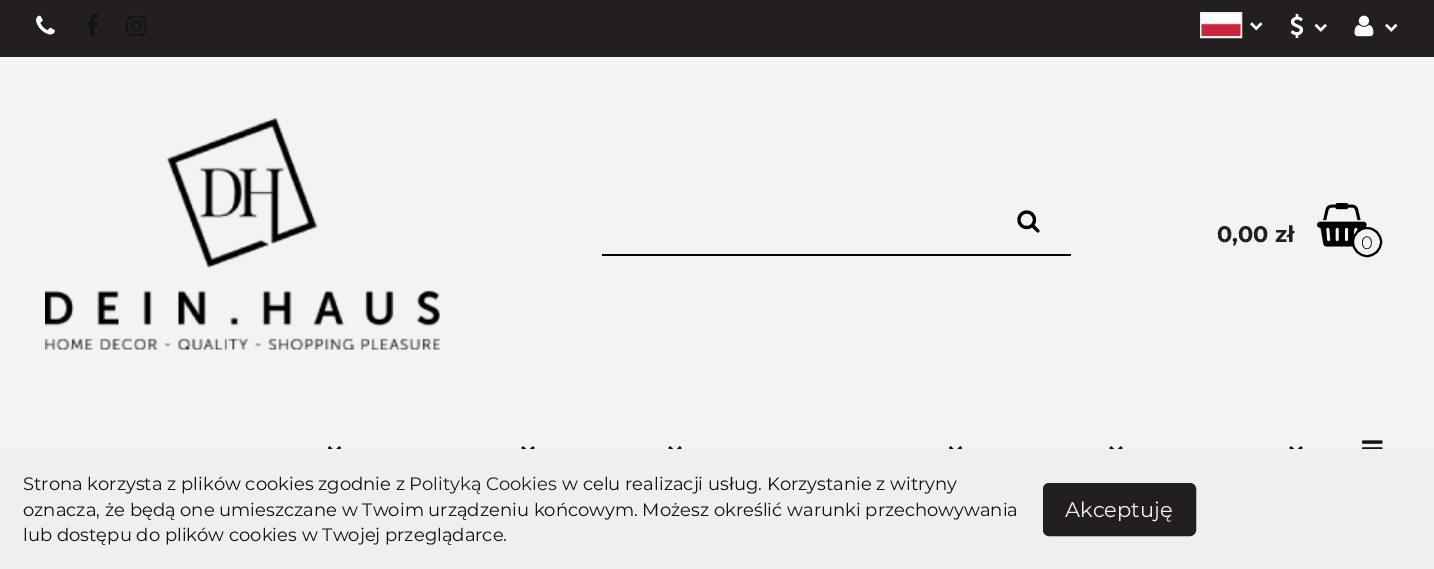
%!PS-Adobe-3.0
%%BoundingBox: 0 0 1434 569
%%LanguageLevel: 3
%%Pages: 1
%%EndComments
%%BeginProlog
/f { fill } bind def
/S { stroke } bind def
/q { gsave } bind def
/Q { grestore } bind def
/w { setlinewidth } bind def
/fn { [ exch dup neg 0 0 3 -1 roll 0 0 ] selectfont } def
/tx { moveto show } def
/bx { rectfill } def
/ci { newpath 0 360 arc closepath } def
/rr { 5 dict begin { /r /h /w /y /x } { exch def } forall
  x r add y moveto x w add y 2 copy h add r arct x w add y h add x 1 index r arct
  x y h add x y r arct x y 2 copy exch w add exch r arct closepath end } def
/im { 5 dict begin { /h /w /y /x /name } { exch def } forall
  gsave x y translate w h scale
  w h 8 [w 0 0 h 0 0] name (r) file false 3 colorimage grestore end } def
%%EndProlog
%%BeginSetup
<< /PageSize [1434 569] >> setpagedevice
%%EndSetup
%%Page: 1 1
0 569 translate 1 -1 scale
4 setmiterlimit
0.953 setgray
0 0 1434 569 bx
0.137 0.122 0.125 setrgbcolor
0 0 1434 57 bx
(image0.raw) 36 15 19 20 im
(image1.raw) 87 14 12 22 im
(image2.raw) 126 15 21 21 im
0.937 setgray
2 w
1201 13 40 24 rectstroke
(image3.raw) 1201 13 40 23 im
(image4.raw) 1250 22 13 9 im
(image5.raw) 1290 13 14 25 im
(image6.raw) 1314 24 13 8 im
(image7.raw) 1354 15 20 22 im
(image8.raw) 1385 24 13 8 im
(image9.raw) 45 118 395 232 im
(image10.raw) 1017 210 23 23 im
0.004 setgray
602 254 469 2 bx
/Montserrat-Bold 22.5 fn
0.137 0.122 0.125 setrgbcolor
(0,00 zł) 1217 242 tx
(image11.raw) 1317 203 50 44 im
0.953 setgray
1367 242 14 ci q f Q
0 setgray
S
/Montserrat-Light 18 fn
(0) 1361 249 tx
(image12.raw) 327 446 15 3 im
(image13.raw) 521 446 14 3 im
(image13.raw) 668 446 14 3 im
(image12.raw) 948 446 15 3 im
(image13.raw) 1109 446 14 3 im
(image13.raw) 1289 446 14 3 im
(image14.raw) 1362 440 21 9 im
0.937 setgray
0 449 1434 120 bx
/Montserrat-Regular 18 fn
0.075 setgray
(Strona korzysta z plików cookies zgodnie z) 23 490 tx
0.137 0.122 0.125 setrgbcolor
(Polityką Cookies) 409 490 tx
0.075 setgray
(w celu realizacji usług. Korzystanie z witryny) 562 490 tx
(oznacza, że będą one umieszczane w Twoim urządzeniu końcowym. Możesz określić warunki przechowywania) 23 516 tx
(lub dostępu do plików cookies w Twojej przeglądarce.) 23 541 tx
0.137 0.122 0.125 setrgbcolor
1045.5 485.5 148 48 3.5 rr q f Q
5 w
S
/Montserrat-Regular 21 fn
0.953 setgray
(Akceptuję) 1065 517 tx
showpage
%%EOF
